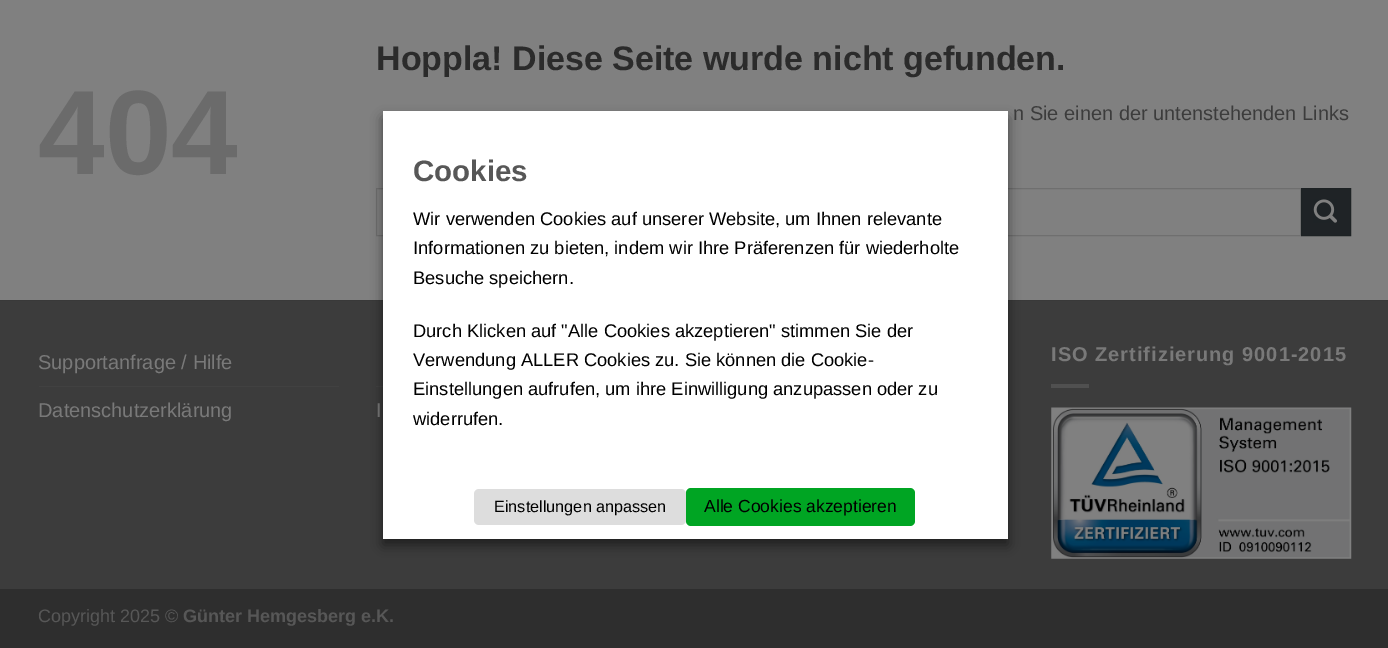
%!PS-Adobe-3.0
%%BoundingBox: 0 0 1388 648
%%LanguageLevel: 3
%%Pages: 1
%%EndComments
%%BeginProlog
/m { moveto } bind def
/l { lineto } bind def
/h { closepath } bind def
/f { fill } bind def
/S { stroke } bind def
/q { gsave } bind def
/Q { grestore } bind def
/fn { [ exch dup neg 0 0 3 -1 roll 0 0 ] selectfont } def
/tx { moveto show } def
/bx { rectfill } def
/al { dup .setfillconstantalpha .setstrokeconstantalpha } def
/rr { 5 dict begin { /r /h /w /y /x } { exch def } forall
  x r add y moveto x w add y 2 copy h add r arct x w add y h add x 1 index r arct
  x y h add x y r arct x y 2 copy exch w add exch r arct closepath end } def
/sh { 12 dict begin { /a /b /q /h /w /y /x } { exch def } forall gsave /was 0 def
  9 -2 -9 { dup b mul 4 div /e exch def 1 sub .425 mul 2.718 exch exp 1 add a .99 .min exch div /now exch def
    1 1 now sub 1 was sub div sub al /was now def
    w h .min e 2 mul add 0 gt { x e sub y e sub w e 2 mul add h e 2 mul add
      q e add b .6 mul add w h .min 2 div e add .min 0 .max rr fill } if } for grestore end } def
/im { 5 dict begin { /h /w /y /x /name } { exch def } forall
  gsave x y translate w h scale
  w h 8 [w 0 0 h 0 0] name (r) file false 3 colorimage grestore end } def
%%EndProlog
%%BeginSetup
<< /PageSize [1388 648] /PageUsesTransparency true >> setpagedevice
%%EndSetup
%%Page: 1 1
0 .pushpdf14devicefilter
0 648 translate 1 -1 scale
4 setmiterlimit
0.502 setgray
0 0 1388 648 bx
/LiberationSans-Bold 120 fn
0.42 setgray
(404) 38 174 tx
/LiberationSans-Bold 34 fn
0.169 setgray
(Hoppla! Diese Seite wurde nicht gefunden.) 376 70 tx
/LiberationSans-Regular 20 fn
0.235 setgray
(n Sie einen der untenstehenden Links) 1013 120 tx
0.435 setgray
376.5 188.5 924 47 rectstroke
0.122 0.137 0.149 setrgbcolor
1301.5 188.5 m 1350.5 188.5 l 1350.5 235.5 l 1301.5 235.5 l h q f Q
0.114 0.133 0.141 setrgbcolor
S
(image0.raw) 1313 199 24 24 im
0.235 setgray
0 301 1388 288 bx
0.224 setgray
0 300 1388 1 bx
0.475 setgray
(Supportanfrage / Hilfe) 38 369 tx
0.255 setgray
39 386 300 1 bx
0.475 setgray
(Datenschutzerklärung) 38 417 tx
0.255 setgray
376 386 7 1 bx
0.475 setgray
(I) 376 417 tx
/LiberationSans-Bold 20 fn
1051 361 m 1 0 (ISO Zertifizierung 9001-2015) ashow
0.314 setgray
1051 384 38 4 bx
(image1.raw) 1051 407 301 152 im
0.18 setgray
0 589 1388 59 bx
/LiberationSans-Regular 18 fn
0.341 setgray
(Copyright 2025 ©) 38 622 tx
/LiberationSans-Bold 18 fn
(Günter Hemgesberg e.K.) 183 622 tx
0 setgray
383 118 625 427 0 6 0.5 sh
1 setgray
383 111 625 428 bx
/LiberationSans-Bold 29.5 fn
0.341 setgray
(Cookies) 413 181 tx
/LiberationSans-Regular 18.3 fn
0 setgray
(Wir verwenden Cookies auf unserer Website, um Ihnen relevante) 413 225 tx
(Informationen zu bieten, indem wir Ihre Präferenzen für wiederholte) 413 254 tx
(Besuche speichern.) 413 284 tx
(Durch Klicken auf "Alle Cookies akzeptieren" stimmen Sie der) 413 337 tx
(Verwendung ALLER Cookies zu. Sie können die Cookie-) 413 366 tx
(Einstellungen aufrufen, um ihre Einwilligung anzupassen oder zu) 413 395 tx
(widerrufen.) 413 425 tx
0.867 setgray
474 489 212 36 5 rr f
/LiberationSans-Regular 16.25 fn
0 setgray
(Einstellungen anpassen) 494 512 tx
0 0.647 0.137 setrgbcolor
686 488 229 38 5 rr f
/LiberationSans-Regular 17.5 fn
0 setgray
(Alle Cookies akzeptieren) 704 512 tx
.poppdf14devicefilter showpage
%%EOF
